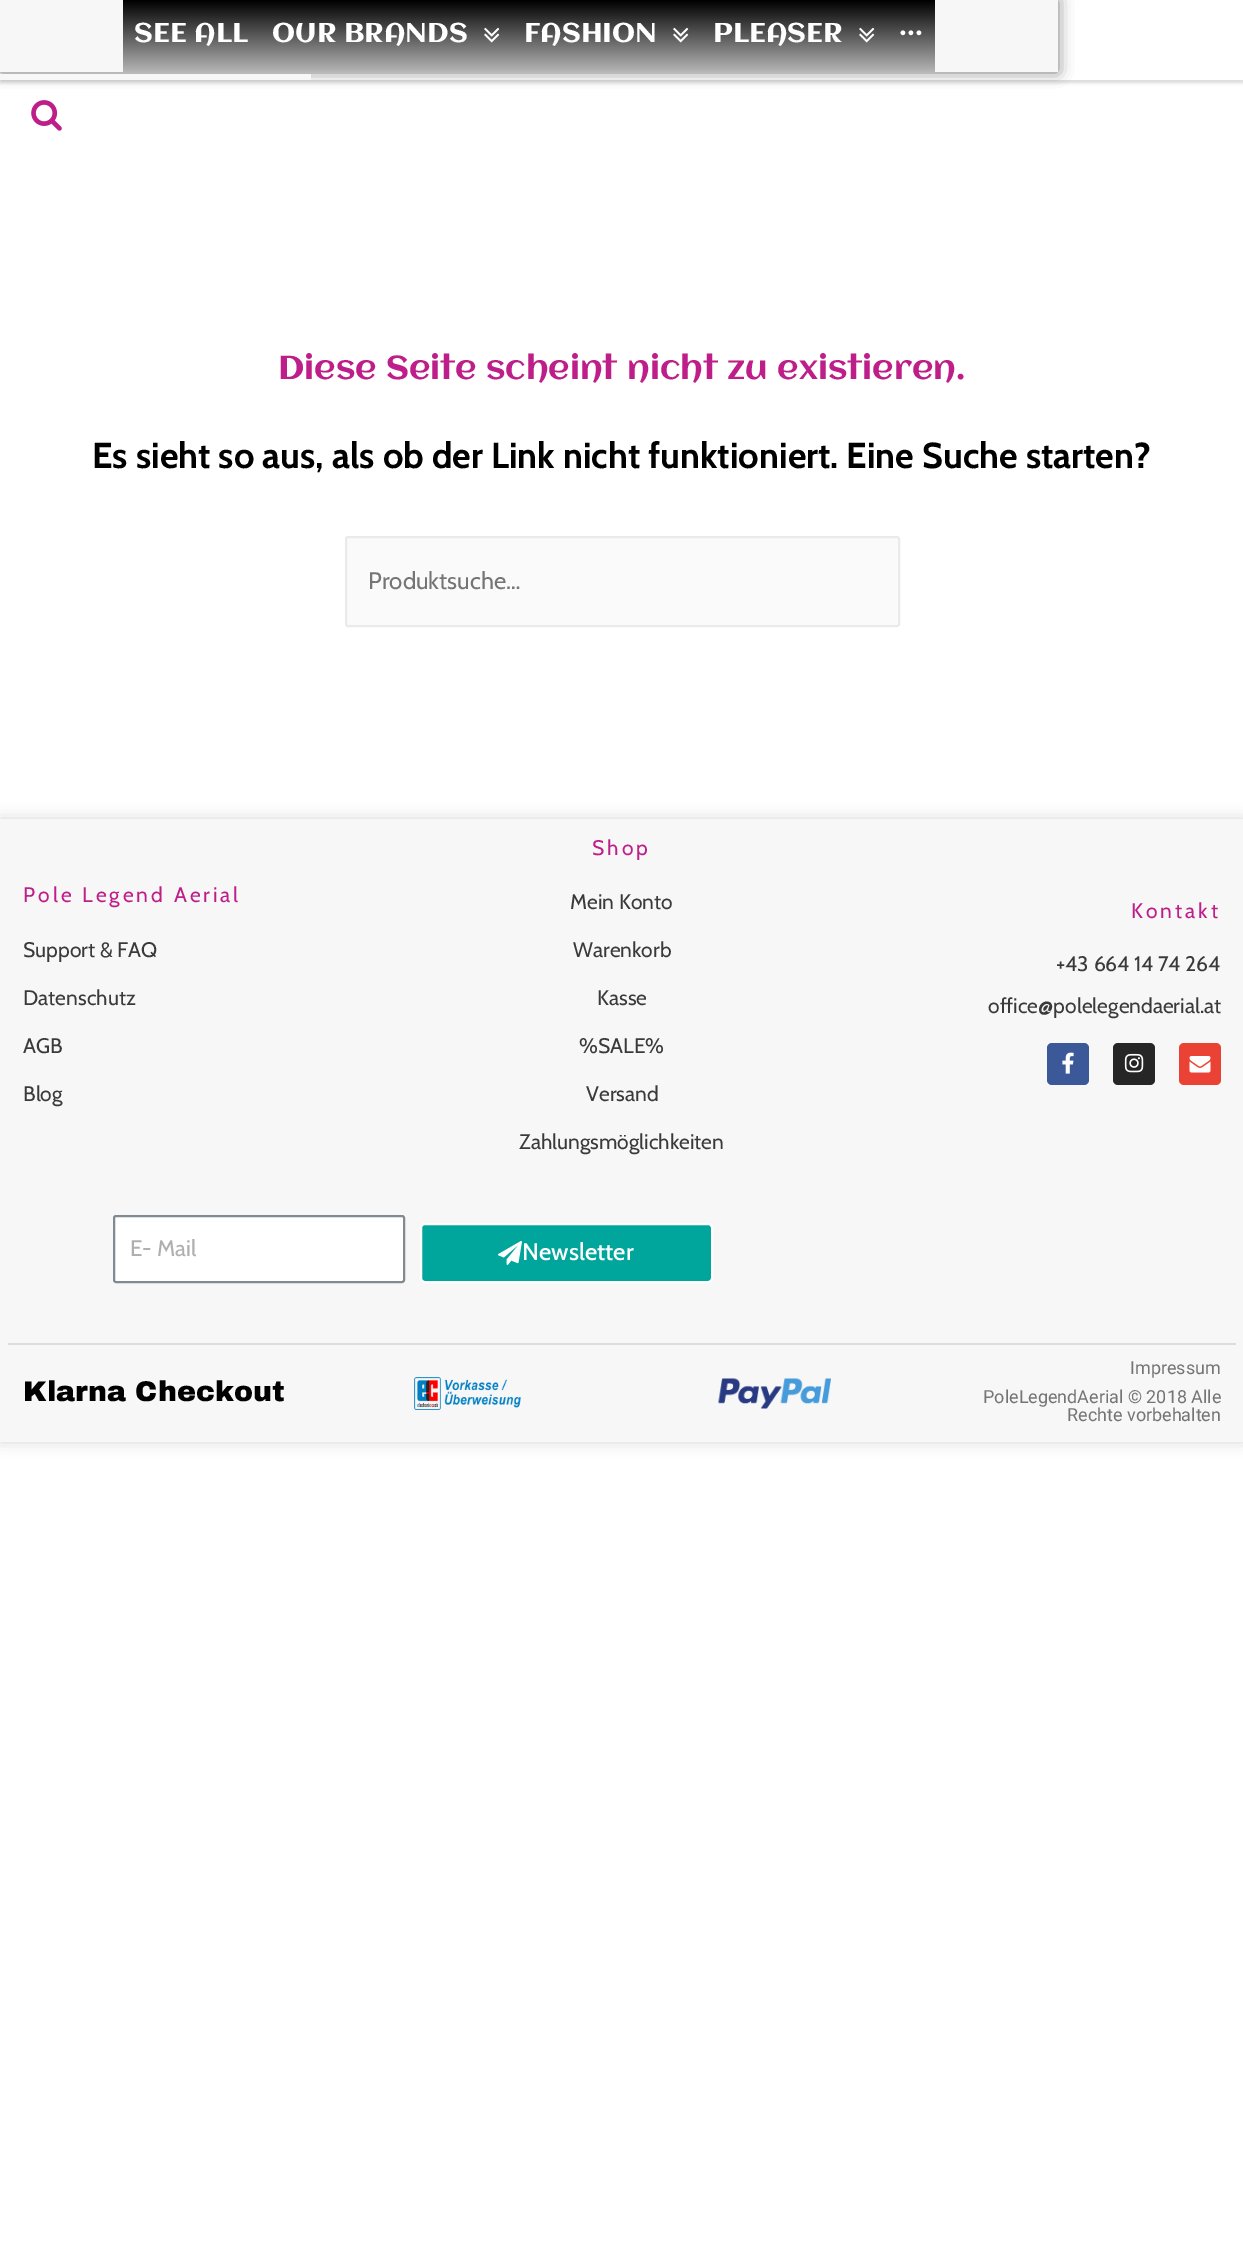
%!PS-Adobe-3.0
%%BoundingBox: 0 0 1243 2244
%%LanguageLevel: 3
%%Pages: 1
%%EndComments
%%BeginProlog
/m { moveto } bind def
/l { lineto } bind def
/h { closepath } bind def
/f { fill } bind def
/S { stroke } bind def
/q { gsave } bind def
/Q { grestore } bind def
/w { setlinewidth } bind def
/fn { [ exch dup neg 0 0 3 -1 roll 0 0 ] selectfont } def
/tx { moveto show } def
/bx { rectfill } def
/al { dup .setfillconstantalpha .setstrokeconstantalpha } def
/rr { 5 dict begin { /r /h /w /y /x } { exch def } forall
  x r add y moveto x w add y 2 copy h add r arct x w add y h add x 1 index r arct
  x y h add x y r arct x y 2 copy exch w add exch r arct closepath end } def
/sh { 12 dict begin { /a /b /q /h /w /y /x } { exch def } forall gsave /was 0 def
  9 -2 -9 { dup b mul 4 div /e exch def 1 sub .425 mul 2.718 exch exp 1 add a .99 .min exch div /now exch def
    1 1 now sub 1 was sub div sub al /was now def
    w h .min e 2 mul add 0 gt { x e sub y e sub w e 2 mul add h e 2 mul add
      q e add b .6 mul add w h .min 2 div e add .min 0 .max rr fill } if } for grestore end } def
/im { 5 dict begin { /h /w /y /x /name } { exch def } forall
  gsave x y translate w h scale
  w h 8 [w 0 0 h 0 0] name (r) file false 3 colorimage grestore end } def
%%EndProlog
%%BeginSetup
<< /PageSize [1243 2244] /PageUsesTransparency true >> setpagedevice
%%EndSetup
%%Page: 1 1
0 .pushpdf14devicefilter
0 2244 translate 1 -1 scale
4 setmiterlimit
1 setgray
0 0 1243 2244 bx
0 setgray
0 0 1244 83 0 1.5 0.14 sh
1 setgray
311 0 932 80 bx
0.969 setgray
0 72 1058 2 bx
0 setgray
0 0 1058 72 0 7.5 0.5 sh
0.969 setgray
0 0 1058 72 bx
q 123 0 m 261 0 l 261 72 l 123 72 l h clip newpath
<< /ShadingType 2 /ColorSpace /DeviceRGB /Coords [192 0 192 72] /Extend [true true] /Function << /FunctionType 2 /Domain [0 1] /C0 [0 0 0] /C1 [0.71 0.71 0.71] /N 1 >> >> shfill Q
/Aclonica-Regular 27 fn
1 setgray
(SEE ALL) 134 42 tx
q 261 0 m 512 0 l 512 72 l 261 72 l h clip newpath
<< /ShadingType 2 /ColorSpace /DeviceRGB /Coords [386 0 386 72] /Extend [true true] /Function << /FunctionType 2 /Domain [0 1] /C0 [0 0 0] /C1 [0.71 0.71 0.71] /N 1 >> >> shfill Q
(OUR BRANDS) 272 42 tx
(image0.raw) 484 27 16 16 im
q 512 0 m 701 0 l 701 72 l 512 72 l h clip newpath
<< /ShadingType 2 /ColorSpace /DeviceRGB /Coords [606 0 606 72] /Extend [true true] /Function << /FunctionType 2 /Domain [0 1] /C0 [0 0 0] /C1 [0.71 0.71 0.71] /N 1 >> >> shfill Q
(FASHION) 524 42 tx
(image0.raw) 673 27 16 16 im
q 701 0 m 887 0 l 887 72 l 701 72 l h clip newpath
<< /ShadingType 2 /ColorSpace /DeviceRGB /Coords [794 0 794 72] /Extend [true true] /Function << /FunctionType 2 /Domain [0 1] /C0 [0 0 0] /C1 [0.71 0.71 0.71] /N 1 >> >> shfill Q
(PLEASER) 713 42 tx
(image0.raw) 859 27 16 16 im
q 887 0 m 935 0 l 935 72 l 887 72 l h clip newpath
<< /ShadingType 2 /ColorSpace /DeviceRGB /Coords [911 0 911 72] /Extend [true true] /Function << /FunctionType 2 /Domain [0 1] /C0 [0 0 0] /C1 [0.71 0.71 0.71] /N 1 >> >> shfill Q
(···) 899 42 tx
0.969 setgray
0 74 311 6 bx
(image1.raw) 31 100 31 31 im
/Aclonica-Regular 33 fn
0.745 0.118 0.537 setrgbcolor
(Diese Seite scheint nicht zu existieren.) 278 379 tx
/Cabin-Bold 36 fn
0 setgray
(Es sieht so aus, als ob der Link nicht funktioniert. Eine Suche starten?) 92 468 tx
0.98 setgray
346 537 553 89 2 rr q f Q
0.918 setgray
2 w
S
/Cabin-Regular 24 fn
0.459 setgray
(Produktsuche…) 368 589 tx
0 setgray
0 819 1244 623 0 7.5 0.15 sh
0.969 setgray
0 819 1243 623 bx
/Cabin-Regular 21 fn
0.745 0.118 0.537 setrgbcolor
23 902 m 3 0 (Pole Legend Aerial) ashow
0.227 setgray
(Support & FAQ) 23 957 tx
(Datenschutz) 23 1005 tx
(AGB) 23 1053 tx
(Blog) 23 1101 tx
0.745 0.118 0.537 setrgbcolor
592 855 m 3 0 (Shop) ashow
0.227 setgray
(Mein Konto) 570 909 tx
(Warenkorb) 573 957 tx
(Kasse) 597 1005 tx
(%SALE%) 579 1053 tx
(Versand) 586 1101 tx
(Zahlungsmöglichkeiten) 519 1149 tx
0.745 0.118 0.537 setrgbcolor
1131 918 m 3 0 (Kontakt) ashow
0.227 setgray
(+43 664 14 74 264) 1056 971 tx
(office@polelegendaerial.at) 988 1013 tx
0.231 0.349 0.596 setrgbcolor
1047 1043 42 42 5 rr f
(image2.raw) 1062 1052 12 22 im
0.149 setgray
1113 1043 42 42 5 rr f
(image3.raw) 1124 1053 20 20 im
0.918 0.263 0.208 setrgbcolor
1179 1043 42 42 5 rr f
(image4.raw) 1189 1056 22 17 im
1 setgray
114 1216 290 66 2 rr q f Q
0.506 0.541 0.569 setrgbcolor
S
/Cabin-Regular 22.5 fn
0.686 setgray
(E- Mail) 130 1256 tx
0 0.651 0.612 setrgbcolor
421 1224 291 58 4 rr q f Q
1 setgray
S
(image5.raw) 498 1241 24 24 im
/Cabin-Medium 24 fn
(Newsletter) 522 1260 tx
0.867 setgray
8 1343 1228 2 bx
/ArchivoBlack-Black 28.5 fn
0 setgray
(Klarna Checkout) 23 1401 tx
(image6.raw) 414 1377 108 33 im
(image7.raw) 718 1378 113 31 im
/Roboto-Regular 18 fn
0.459 setgray
(Impressum) 1130 1374 tx
(PoleLegendAerial © 2018 Alle) 983 1403 tx
(Rechte vorbehalten) 1067 1421 tx
.poppdf14devicefilter showpage
%%EOF
